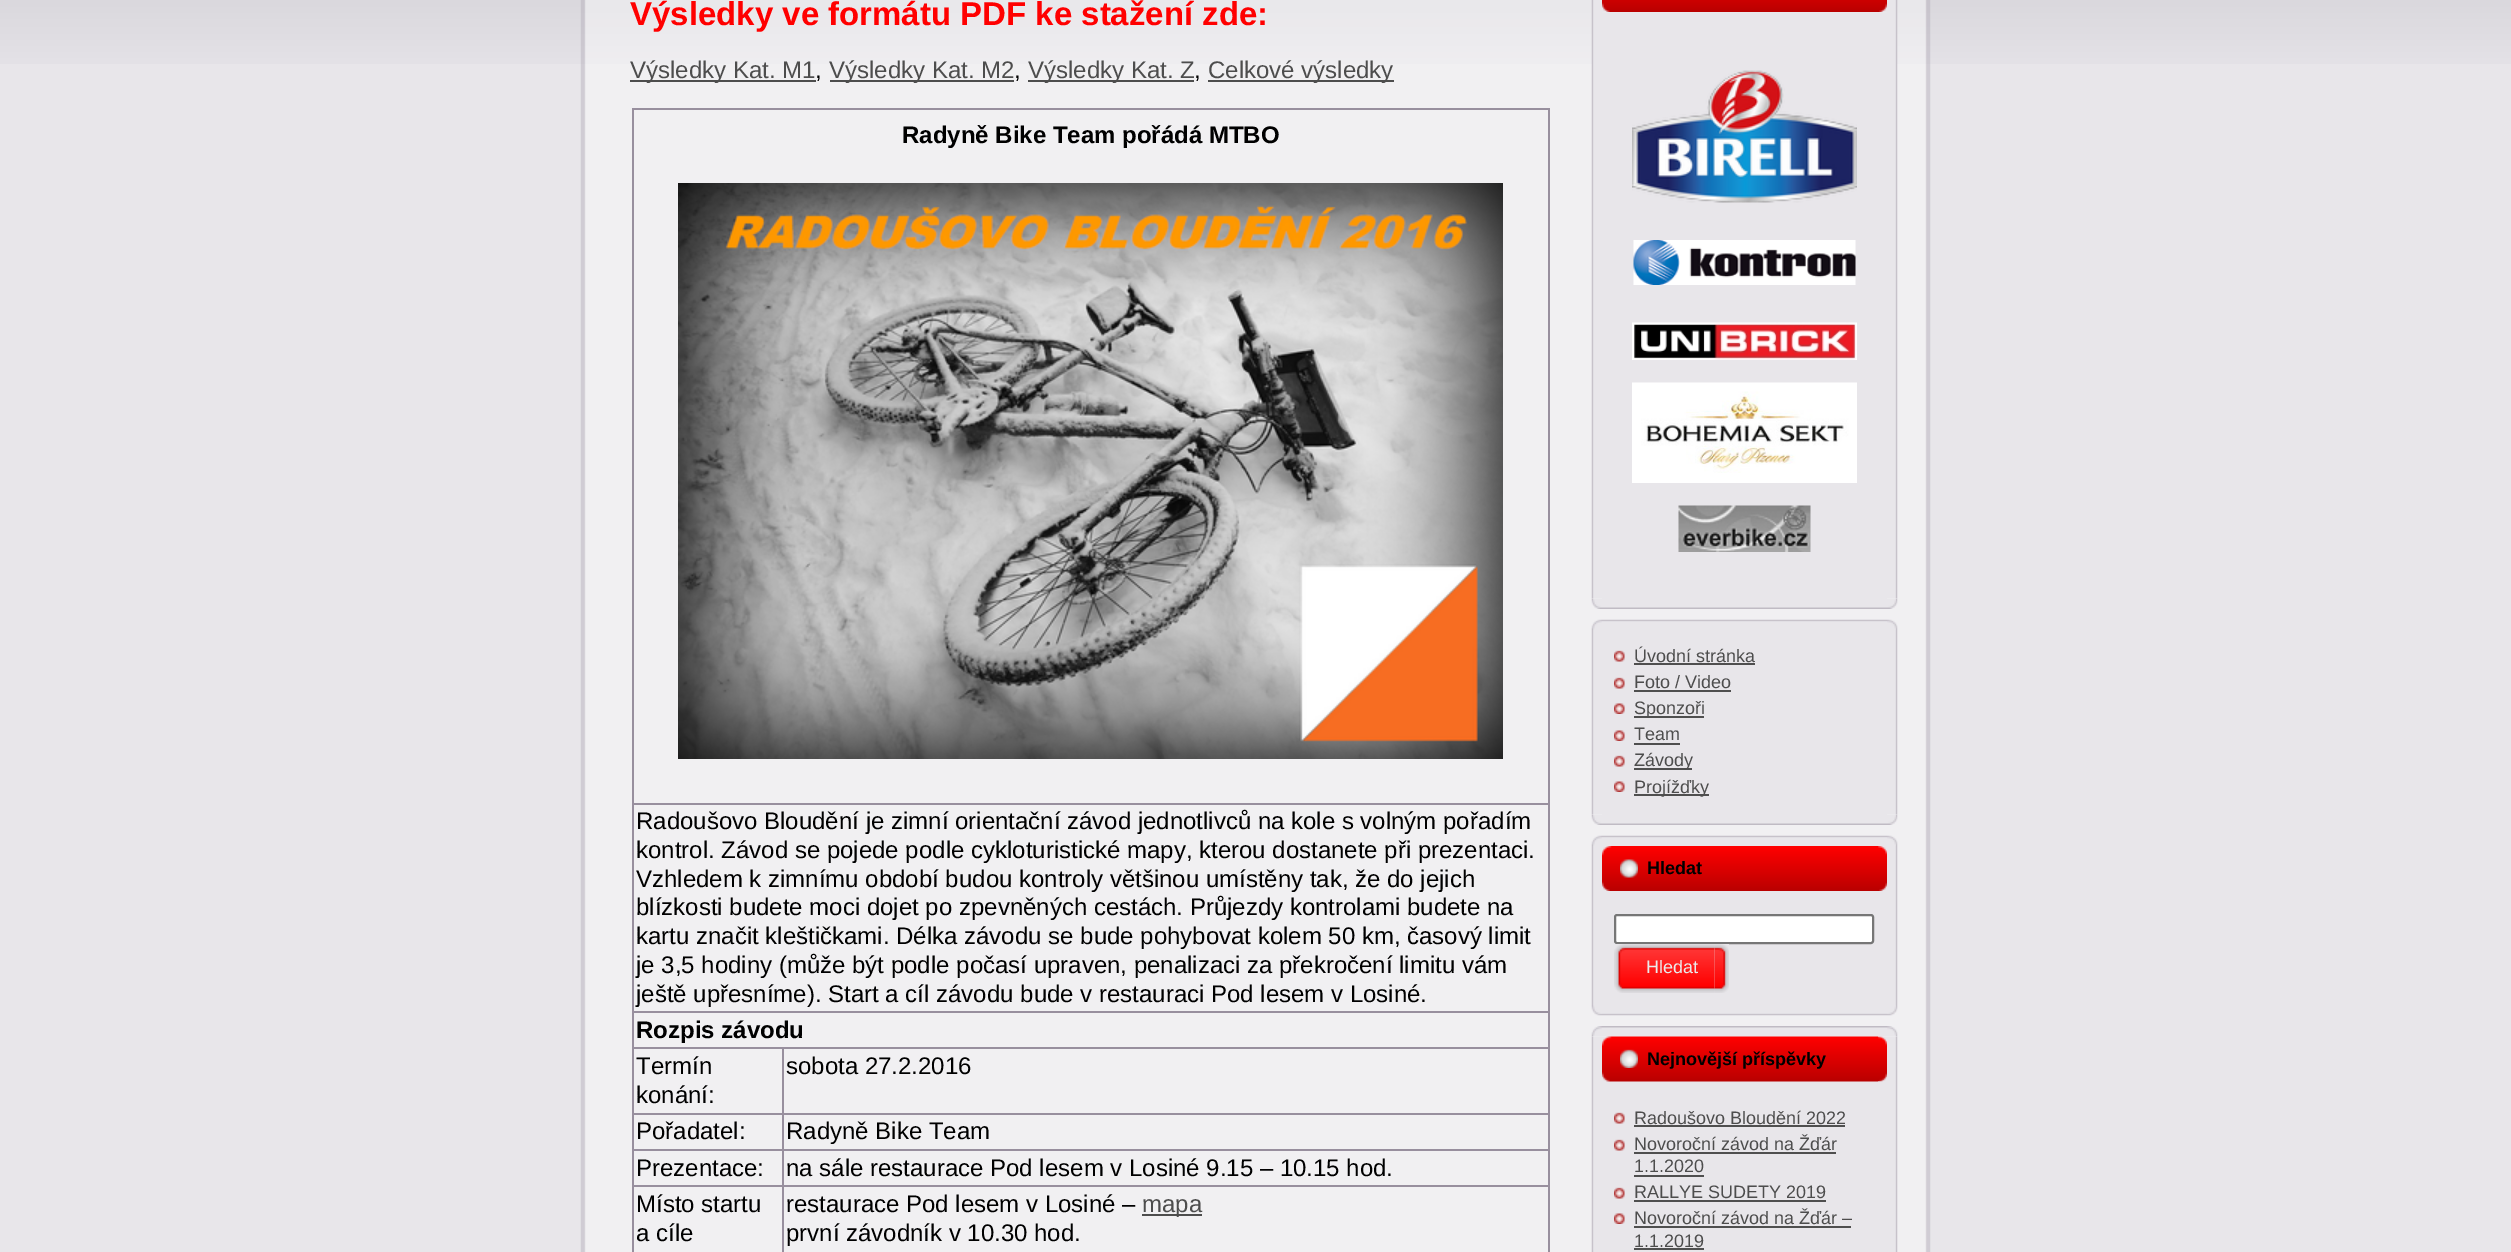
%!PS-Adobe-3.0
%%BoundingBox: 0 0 2511 1252
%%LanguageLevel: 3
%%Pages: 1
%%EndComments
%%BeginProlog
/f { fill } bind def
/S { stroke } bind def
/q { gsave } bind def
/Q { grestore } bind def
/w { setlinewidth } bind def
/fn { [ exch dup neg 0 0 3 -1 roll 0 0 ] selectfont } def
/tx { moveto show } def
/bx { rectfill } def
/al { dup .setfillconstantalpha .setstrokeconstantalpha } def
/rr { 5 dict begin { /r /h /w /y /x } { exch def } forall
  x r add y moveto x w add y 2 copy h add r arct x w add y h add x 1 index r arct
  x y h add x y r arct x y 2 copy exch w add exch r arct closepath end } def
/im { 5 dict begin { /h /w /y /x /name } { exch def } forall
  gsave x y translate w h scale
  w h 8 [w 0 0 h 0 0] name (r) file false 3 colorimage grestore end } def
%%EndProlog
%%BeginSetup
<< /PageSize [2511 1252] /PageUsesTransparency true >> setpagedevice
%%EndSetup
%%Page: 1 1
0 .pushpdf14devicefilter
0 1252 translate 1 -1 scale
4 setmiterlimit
0.91 0.902 0.918 setrgbcolor
0 0 2511 1252 bx
(image0.raw) 0 0 2511 64 im
(image1.raw) 580 0 26 1252 im
0.4 al
1 setgray
606 0 1299 1252 bx
/LiberationSans-Bold 33 fn
1 al
1 0 0 setrgbcolor
(Výsledky ve formátu PDF ke stažení zde:) 630 25 tx
0.302 setgray
630 80 186 2 bx
/LiberationSans-Regular 24 fn
(Výsledky Kat. M1) 630 78 tx
0 setgray
(,) 815 78 tx
0.302 setgray
830 80 184 2 bx
(Výsledky Kat. M2) 829 78 tx
0 setgray
(,) 1014 78 tx
0.302 setgray
1028 80 166 2 bx
(Výsledky Kat. Z) 1028 78 tx
0 setgray
(,) 1194 78 tx
0.302 setgray
1208 80 186 2 bx
(Celkové výsledky) 1208 78 tx
0.596 0.561 0.62 setrgbcolor
632 108 918 2 bx
632 803 918 2 bx
632 1011 918 2 bx
782 1047 768 2 bx
782 1113 768 2 bx
782 1149 768 2 bx
782 1185 768 2 bx
1548 1185 2 67 bx
1548 1149 2 38 bx
1548 1113 2 38 bx
1548 1047 2 68 bx
1548 1011 2 38 bx
1548 803 2 210 bx
1548 108 2 696 bx
782 1185 2 67 bx
632 1185 151 2 bx
782 1149 2 38 bx
632 1149 151 2 bx
782 1113 2 38 bx
632 1113 151 2 bx
782 1047 2 68 bx
632 1047 151 2 bx
632 1185 2 67 bx
632 1149 2 38 bx
632 1113 2 38 bx
632 1047 2 68 bx
632 1011 2 38 bx
632 803 2 210 bx
632 108 2 696 bx
/LiberationSans-Bold 24 fn
0 setgray
(Radyně Bike Team pořádá MTBO) 902 143 tx
(image2.raw) 678 183 825 576 im
/LiberationSans-Regular 24 fn
(Radoušovo Bloudění je zimní orientační závod jednotlivců na kole s volným pořadím) 636 829 tx
(kontrol. Závod se pojede podle cykloturistické mapy, kterou dostanete při prezentaci.) 636 858 tx
(Vzhledem k zimnímu období budou kontroly většinou umístěny tak, že do jejich) 636 887 tx
(blízkosti budete moci dojet po zpevněných cestách. Průjezdy kontrolami budete na) 636 915 tx
(kartu značit kleštičkami. Délka závodu se bude pohybovat kolem 50 km, časový limit) 636 944 tx
(je 3,5 hodiny \(může být podle počasí upraven, penalizaci za překročení limitu vám) 636 973 tx
(ještě upřesníme\). Start a cíl závodu bude v restauraci Pod lesem v Losiné.) 636 1002 tx
/LiberationSans-Bold 24 fn
(Rozpis závodu) 636 1038 tx
/LiberationSans-Regular 24 fn
(Termín) 636 1074 tx
(konání:) 636 1103 tx
(sobota 27.2.2016) 786 1074 tx
(Pořadatel:) 636 1139 tx
(Radyně Bike Team) 786 1139 tx
(Prezentace:) 636 1176 tx
(na sále restaurace Pod lesem v Losiné 9.15 – 10.15 hod.) 786 1176 tx
(Místo startu) 636 1212 tx
(a cíle) 636 1241 tx
(restaurace Pod lesem v Losiné –) 786 1212 tx
0.302 setgray
1142 1214 60 2 bx
(mapa) 1142 1212 tx
0 setgray
(první závodník v 10.30 hod.) 786 1241 tx
(image12.raw) 1591 598 11 11 im
(image3.raw) 1591 0 11 599 im
(image4.raw) 1602 0 276 12 im
(image5.raw) 1878 0 9 12 im
0.91 0.902 0.918 setrgbcolor
1602 13 285 586 bx
(image6.raw) 1632 70 225 133 im
(image7.raw) 1633 240 223 45 im
(image8.raw) 1632 322 225 38 im
(image9.raw) 1632 382 225 101 im
(image10.raw) 1678 505 133 47 im
(image14.raw) 1887 598 11 11 im
(image11.raw) 1887 0 11 599 im
(image13.raw) 1602 599 285 10 im
(image15.raw) 1591 619 11 11 im
(image16.raw) 1602 619 285 11 im
(image17.raw) 1887 619 11 11 im
(image12.raw) 1591 814 11 11 im
(image18.raw) 1591 630 11 185 im
1602 630 285 185 bx
(image14.raw) 1887 814 11 11 im
(image19.raw) 1887 630 11 185 im
(image20.raw) 1614 650 11 12 im
/LiberationSans-Regular 18 fn
0.302 setgray
(Úvodní stránka) 1634 662 tx
0.31 setgray
1634 663 121 2 bx
(image20.raw) 1614 677 11 12 im
0.302 setgray
(Foto / Video) 1634 688 tx
0.31 setgray
1634 690 97 2 bx
(image21.raw) 1614 703 11 11 im
1634 716 70 2 bx
0.302 setgray
(Sponzoři) 1634 714 tx
(image21.raw) 1614 730 11 11 im
(Team) 1634 740 tx
0.31 setgray
1634 743 46 2 bx
(image20.raw) 1614 755 11 12 im
1634 768 58 2 bx
0.302 setgray
(Závody) 1634 766 tx
(image21.raw) 1614 781 11 11 im
0.31 setgray
1634 794 75 2 bx
0.302 setgray
(Projížďky) 1634 793 tx
(image13.raw) 1602 815 285 10 im
(image15.raw) 1591 835 11 11 im
(image16.raw) 1602 835 285 11 im
(image17.raw) 1887 835 11 11 im
(image22.raw) 1591 846 11 159 im
0.91 0.902 0.918 setrgbcolor
1602 846 285 159 bx
(image23.raw) 1887 846 11 159 im
(image24.raw) 1602 846 276 45 im
(image25.raw) 1878 846 9 45 im
(image26.raw) 1620 859 18 19 im
/LiberationSans-Bold 18 fn
0 setgray
(Hledat) 1647 874 tx
1 setgray
1615 915 258 28 2 rr q f Q
0.463 setgray
2 w
S
(image27.raw) 1614 944 101 49 im
(image28.raw) 1714 944 15 49 im
/LiberationSans-Regular 18 fn
0.922 setgray
(Hledat) 1646 973 tx
(image29.raw) 1591 1005 11 11 im
(image30.raw) 1602 1005 285 11 im
(image31.raw) 1887 1005 11 11 im
(image32.raw) 1591 1026 11 11 im
(image33.raw) 1602 1026 285 11 im
(image34.raw) 1887 1026 11 11 im
(image35.raw) 1591 1036 11 216 im
0.91 0.902 0.918 setrgbcolor
1602 1037 285 215 bx
(image36.raw) 1887 1036 11 216 im
(image37.raw) 1602 1036 276 46 im
(image38.raw) 1878 1036 9 46 im
(image39.raw) 1620 1049 18 19 im
/LiberationSans-Bold 18 fn
0 setgray
(Nejnovější příspěvky) 1647 1065 tx
(image20.raw) 1614 1112 11 12 im
/LiberationSans-Regular 18 fn
0.302 setgray
(Radoušovo Bloudění 2022) 1634 1124 tx
0.31 setgray
1634 1125 211 2 bx
(image20.raw) 1614 1139 11 12 im
0.302 setgray
(Novoroční závod na Žďár) 1634 1150 tx
0.31 setgray
1634 1152 202 2 bx
0.302 setgray
(1.1.2020) 1634 1172 tx
0.31 setgray
1634 1175 70 2 bx
(image20.raw) 1614 1187 11 12 im
0.302 setgray
(RALLYE SUDETY 2019) 1634 1198 tx
0.31 setgray
1634 1200 192 2 bx
(image21.raw) 1614 1213 11 11 im
0.302 setgray
(Novoroční závod na Žďár –) 1634 1224 tx
0.31 setgray
1634 1226 217 2 bx
0.302 setgray
(1.1.2019) 1634 1247 tx
0.31 setgray
1634 1248 70 2 bx
(image40.raw) 1905 0 26 1252 im
.poppdf14devicefilter showpage
%%EOF
